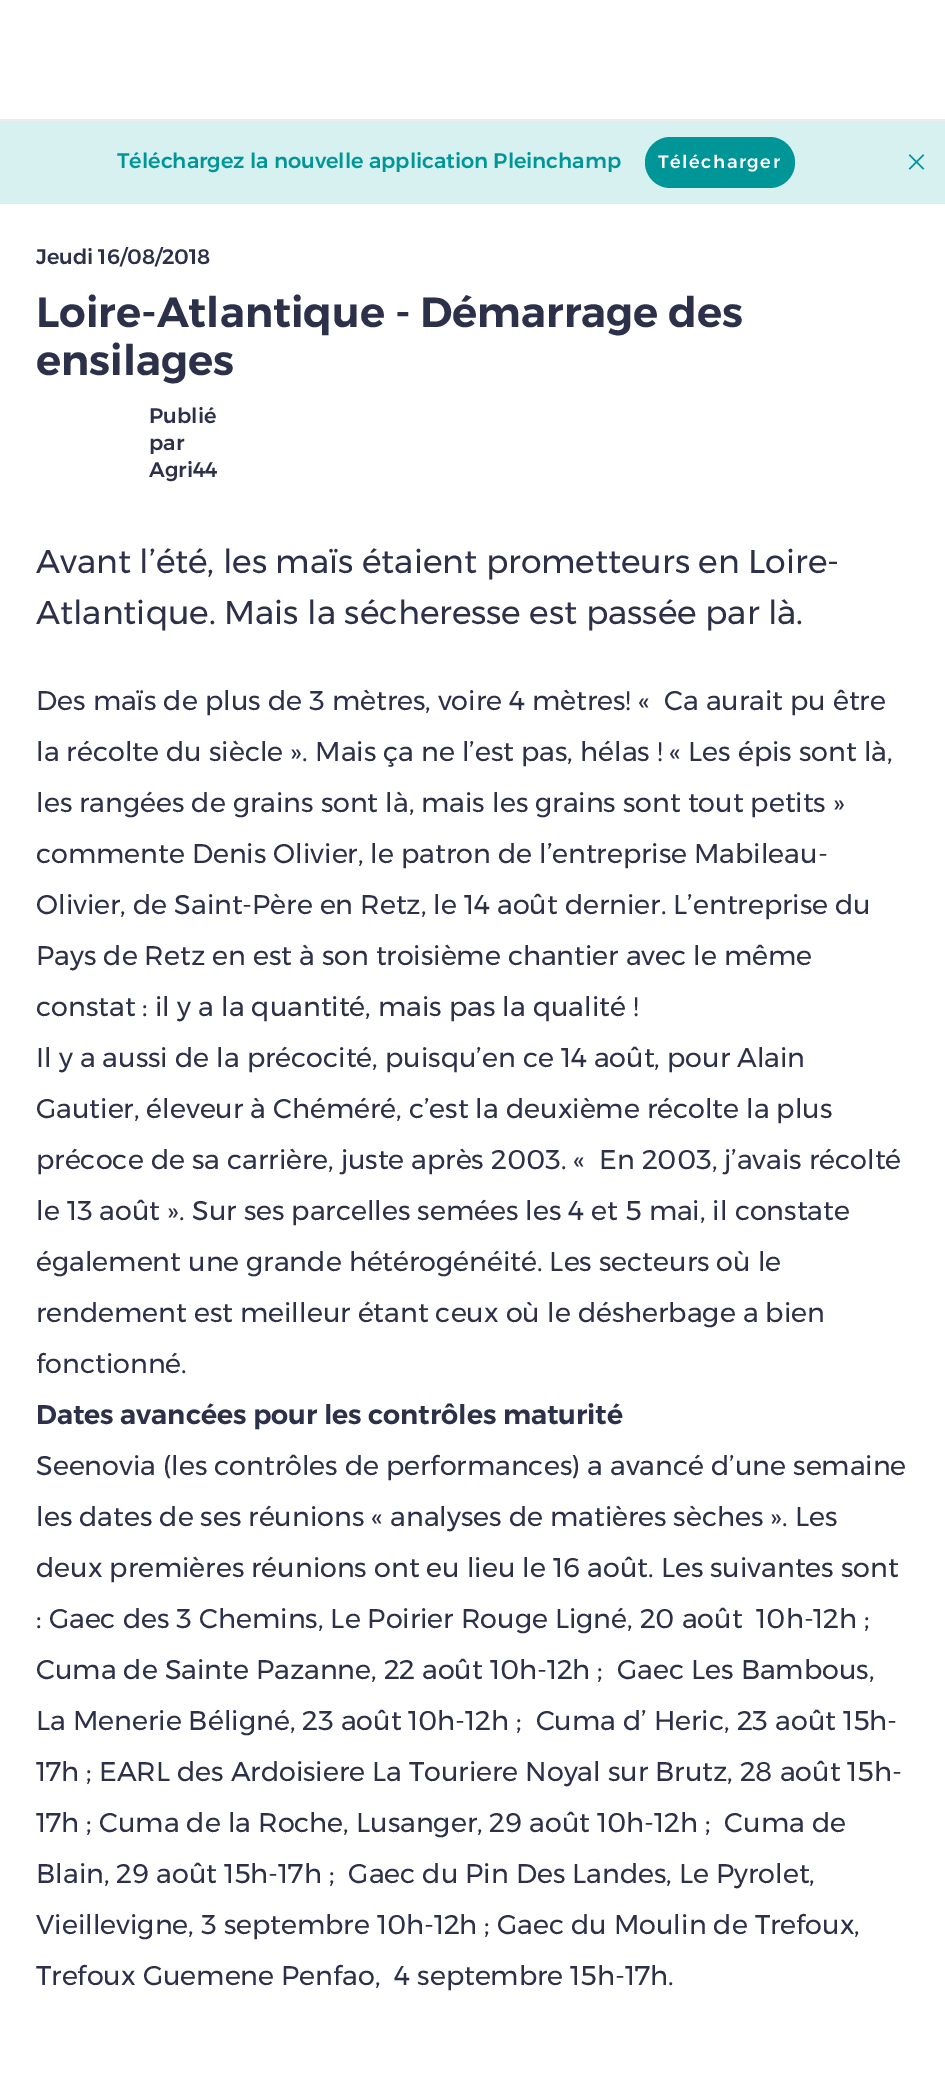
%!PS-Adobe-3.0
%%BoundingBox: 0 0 945 2074
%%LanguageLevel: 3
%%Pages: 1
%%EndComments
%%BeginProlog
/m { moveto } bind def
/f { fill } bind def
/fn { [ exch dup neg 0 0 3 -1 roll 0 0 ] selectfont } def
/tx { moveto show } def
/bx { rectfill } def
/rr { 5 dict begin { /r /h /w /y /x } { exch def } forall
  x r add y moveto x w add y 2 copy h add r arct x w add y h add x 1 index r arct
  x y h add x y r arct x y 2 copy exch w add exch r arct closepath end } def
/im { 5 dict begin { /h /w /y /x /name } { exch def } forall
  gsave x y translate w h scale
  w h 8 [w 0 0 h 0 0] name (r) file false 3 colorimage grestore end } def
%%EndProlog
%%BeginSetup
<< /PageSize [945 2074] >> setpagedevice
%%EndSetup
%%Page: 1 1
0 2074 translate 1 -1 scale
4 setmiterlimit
1 setgray
0 0 945 2074 bx
0.937 0.925 0.925 setrgbcolor
0 119 945 2 bx
0.839 0.945 0.941 setrgbcolor
0 121 945 83 bx
/Montserrat-Medium 21 fn
0 0.588 0.592 setrgbcolor
(Téléchargez la nouvelle application Pleinchamp) 117 168 tx
645 137 150 51 25.5 rr f
/Montserrat-Medium 18 fn
1 setgray
658 168 m 1.5 0 (Télécharger) ashow
(image0.raw) 908 154 17 16 im
/Montserrat-Medium 21 fn
0.176 0.188 0.286 setrgbcolor
(Jeudi 16/08/2018) 36 264 tx
/Montserrat-SemiBold 42 fn
(Loire-Atlantique - Démarrage des) 36 327 tx
(ensilages) 36 375 tx
/Montserrat-Medium 21 fn
(Publié) 149 423 tx
(par) 149 450 tx
(Agri44) 149 477 tx
/Montserrat-Regular 33 fn
(Avant l’été, les maïs étaient prometteurs en Loire-) 36 573 tx
(Atlantique. Mais la sécheresse est passée par là.) 36 624 tx
/Montserrat-Regular 27 fn
(Des maïs de plus de 3 mètres, voire 4 mètres! «  Ca aurait pu être) 36 710 tx
(la récolte du siècle ». Mais ça ne l’est pas, hélas ! « Les épis sont là,) 36 761 tx
(les rangées de grains sont là, mais les grains sont tout petits ») 36 812 tx
(commente Denis Olivier, le patron de l’entreprise Mabileau-) 36 863 tx
(Olivier, de Saint-Père en Retz, le 14 août dernier. L’entreprise du) 36 914 tx
(Pays de Retz en est à son troisième chantier avec le même) 36 965 tx
(constat : il y a la quantité, mais pas la qualité !) 36 1016 tx
(Il y a aussi de la précocité, puisqu’en ce 14 août, pour Alain) 36 1067 tx
(Gautier, éleveur à Chéméré, c’est la deuxième récolte la plus) 36 1118 tx
(précoce de sa carrière, juste après 2003. «  En 2003, j’avais récolté) 36 1169 tx
(le 13 août ». Sur ses parcelles semées les 4 et 5 mai, il constate) 36 1220 tx
(également une grande hétérogénéité. Les secteurs où le) 36 1271 tx
(rendement est meilleur étant ceux où le désherbage a bien) 36 1322 tx
(fonctionné.) 36 1373 tx
/Montserrat-SemiBold 27 fn
(Dates avancées pour les contrôles maturité) 36 1424 tx
/Montserrat-Regular 27 fn
(Seenovia \(les contrôles de performances\) a avancé d’une semaine) 36 1475 tx
(les dates de ses réunions « analyses de matières sèches ». Les) 36 1526 tx
(deux premières réunions ont eu lieu le 16 août. Les suivantes sont) 36 1577 tx
(: Gaec des 3 Chemins, Le Poirier Rouge Ligné, 20 août  10h-12h ;) 36 1628 tx
(Cuma de Sainte Pazanne, 22 août 10h-12h ;  Gaec Les Bambous,) 36 1679 tx
(La Menerie Béligné, 23 août 10h-12h ;  Cuma d’ Heric, 23 août 15h-) 36 1730 tx
(17h ; EARL des Ardoisiere La Touriere Noyal sur Brutz, 28 août 15h-) 36 1781 tx
(17h ; Cuma de la Roche, Lusanger, 29 août 10h-12h ;  Cuma de) 36 1832 tx
(Blain, 29 août 15h-17h ;  Gaec du Pin Des Landes, Le Pyrolet,) 36 1883 tx
(Vieillevigne, 3 septembre 10h-12h ; Gaec du Moulin de Trefoux,) 36 1934 tx
(Trefoux Guemene Penfao,  4 septembre 15h-17h.) 36 1985 tx
showpage
%%EOF
